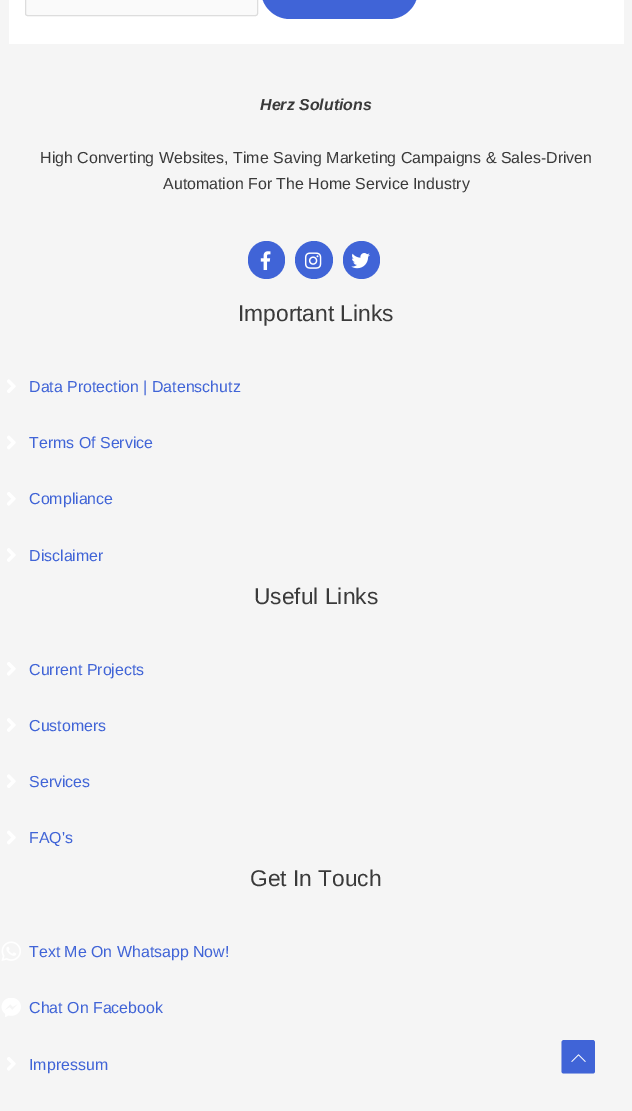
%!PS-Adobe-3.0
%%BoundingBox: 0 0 632 1111
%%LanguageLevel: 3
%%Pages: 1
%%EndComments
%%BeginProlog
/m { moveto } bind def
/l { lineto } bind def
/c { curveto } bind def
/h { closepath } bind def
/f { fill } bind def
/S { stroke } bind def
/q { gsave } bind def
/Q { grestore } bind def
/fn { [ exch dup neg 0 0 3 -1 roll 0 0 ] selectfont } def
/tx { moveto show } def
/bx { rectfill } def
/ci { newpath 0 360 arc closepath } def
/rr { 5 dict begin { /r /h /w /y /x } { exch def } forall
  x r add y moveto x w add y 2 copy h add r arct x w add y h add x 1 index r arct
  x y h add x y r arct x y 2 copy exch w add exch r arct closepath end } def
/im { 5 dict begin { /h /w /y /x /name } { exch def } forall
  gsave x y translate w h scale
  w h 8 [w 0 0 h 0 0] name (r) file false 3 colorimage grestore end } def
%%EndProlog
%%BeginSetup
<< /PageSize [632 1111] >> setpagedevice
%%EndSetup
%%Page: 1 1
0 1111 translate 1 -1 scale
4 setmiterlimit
0.961 setgray
0 0 632 1111 bx
1 setgray
9 0 615 44 bx
0.98 setgray
25.5 -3.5 232 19 2 rr q f Q
0.867 setgray
S
0.251 0.392 0.843 setrgbcolor
261 -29 157 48 29 rr f
/LiberationSans-BoldItalic 15.95 fn
0.227 setgray
(Herz Solutions) 260 110 tx
/LiberationSans-Regular 15.95 fn
(High Converting Websites, Time Saving Marketing Campaigns & Sales-Driven) 40 163 tx
(Automation For The Home Service Industry) 163 189 tx
0.251 0.392 0.843 setrgbcolor
248 241 37 38 18.5 rr f
(image0.raw) 260 251 11 19 im
314 260 19 ci f
(image1.raw) 304 252 18 17 im
343 241 37 38 18.5 rr f
(image2.raw) 351 253 19 16 im
/LiberationSans-Regular 22.75 fn
0.227 setgray
(Important Links) 238 321 tx
(image3.raw) 7 379 9 14 im
/LiberationSans-Regular 15.95 fn
0.251 0.392 0.843 setrgbcolor
(Data Protection | Datenschutz) 29 392 tx
(image4.raw) 7 435 9 15 im
(Terms Of Service) 29 448 tx
(image5.raw) 7 492 9 14 im
(Compliance) 29 504 tx
(image6.raw) 7 548 9 14 im
(Disclaimer) 29 561 tx
/LiberationSans-Regular 22.75 fn
0.227 setgray
(Useful Links) 254 604 tx
(image5.raw) 7 662 9 14 im
/LiberationSans-Regular 15.95 fn
0.251 0.392 0.843 setrgbcolor
(Current Projects) 29 675 tx
(image6.raw) 7 718 9 14 im
(Customers) 29 731 tx
(image3.raw) 7 774 9 14 im
(Services) 29 787 tx
(image4.raw) 7 830 9 15 im
(FAQ's) 29 843 tx
/LiberationSans-Regular 22.75 fn
0.227 setgray
(Get In Touch) 250 886 tx
(image7.raw) 1 941 20 20 im
/LiberationSans-Regular 15.95 fn
0.251 0.392 0.843 setrgbcolor
(Text Me On Whatsapp Now!) 29 957 tx
(image8.raw) 1 998 20 19 im
(Chat On Facebook) 29 1013 tx
(image5.raw) 7 1057 9 14 im
(Impressum) 29 1070 tx
592.5 1073.5 m 564 1073.5 l 562.5 1073.5 561.5 1072.5 561.5 1071 c 561.5 1042.5 l 561.5 1041.5 562.5 1040 564 1040 c 592.5 1040 l 594 1040 595 1041.5 595 1042.5 c 595 1071 l 595 1072.5 594 1073.5 592.5 1073.5 c h f
(image9.raw) 571 1054 15 8 im
showpage
%%EOF
